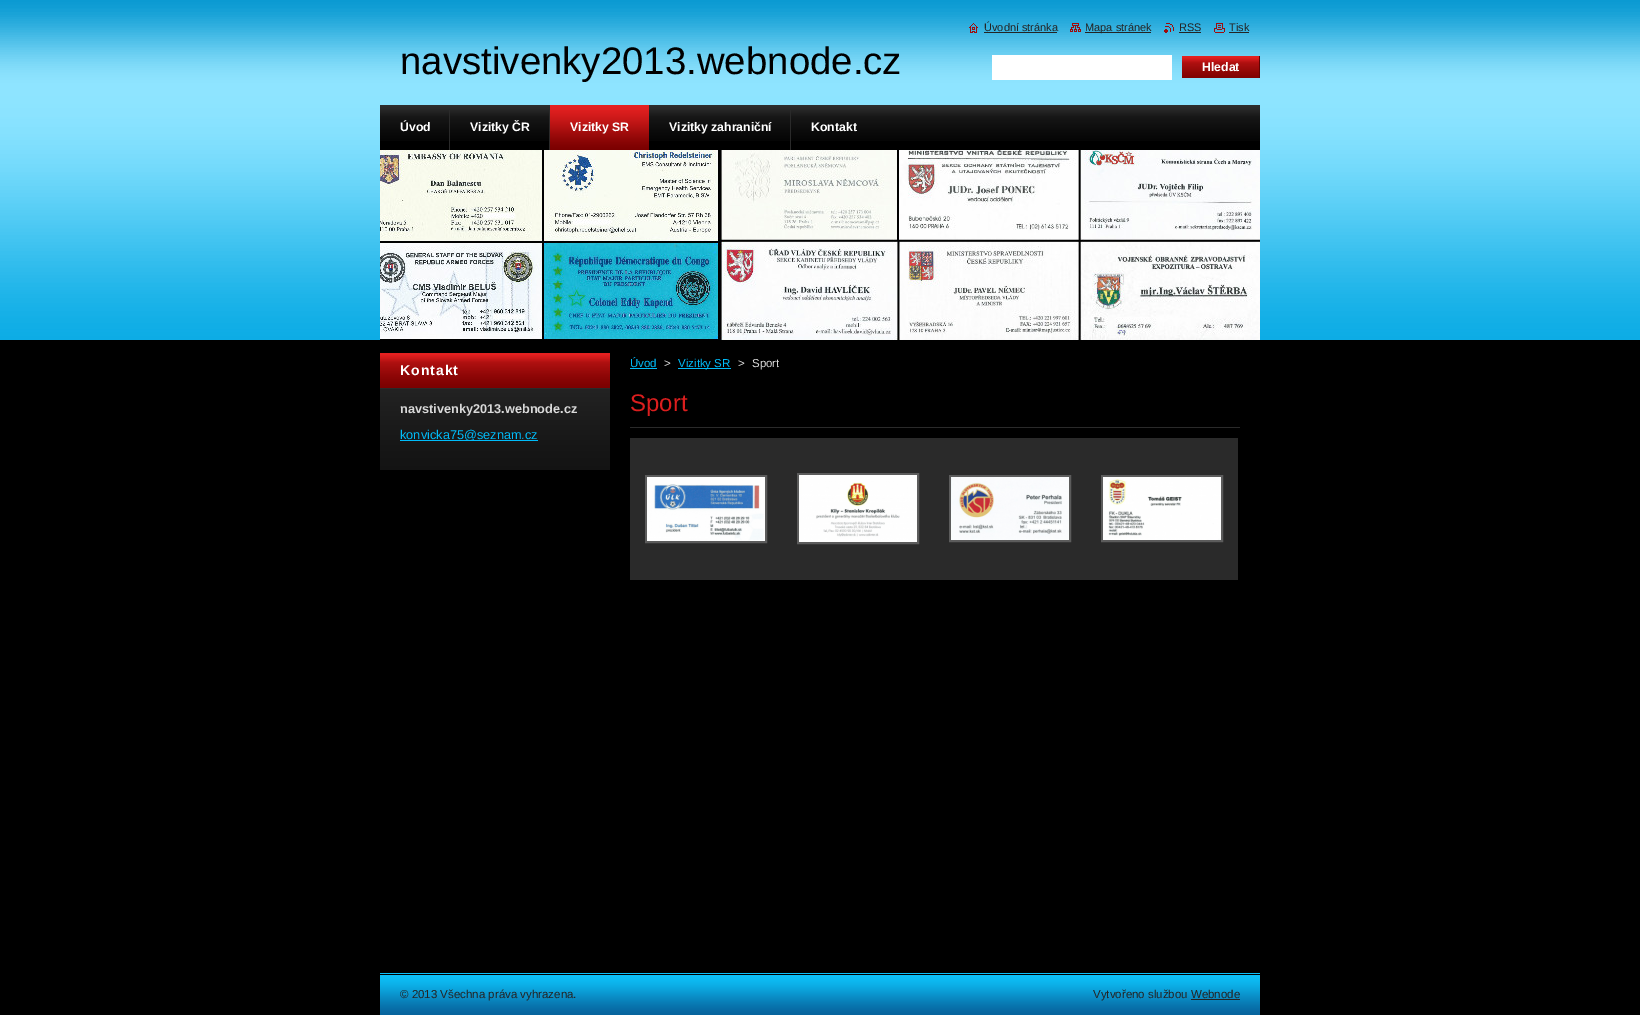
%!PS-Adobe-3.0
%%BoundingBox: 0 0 1640 1015
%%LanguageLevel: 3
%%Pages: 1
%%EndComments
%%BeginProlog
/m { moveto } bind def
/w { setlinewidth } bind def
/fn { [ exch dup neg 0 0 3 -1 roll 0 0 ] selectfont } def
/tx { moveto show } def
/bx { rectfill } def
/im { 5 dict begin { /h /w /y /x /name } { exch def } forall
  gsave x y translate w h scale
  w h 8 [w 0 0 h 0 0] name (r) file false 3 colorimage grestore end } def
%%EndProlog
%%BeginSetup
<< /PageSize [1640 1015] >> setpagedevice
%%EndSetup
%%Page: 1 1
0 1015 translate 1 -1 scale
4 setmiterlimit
0 setgray
0 0 1640 1015 bx
(image0.raw) 0 0 1640 340 im
(image1.raw) 969 23 9 10 im
/LiberationSans-Regular 11 fn
0.141 setgray
(Úvodní stránka) 984 31 tx
984 32 73 1 bx
(image2.raw) 1070 23 11 9 im
1085 32 66 1 bx
(Mapa stránek) 1085 31 tx
(image3.raw) 1164 23 10 10 im
(RSS) 1179 31 tx
1179 32 22 1 bx
(image4.raw) 1214 23 11 10 im
(Tisk) 1229 31 tx
1229 32 20 1 bx
/LiberationSans-Regular 38.4 fn
0 setgray
(navstivenky2013.webnode.cz) 400 74 tx
1 setgray
992 55 180 25 bx
0.898 0.125 0.125 setrgbcolor
1182 56 77 1 bx
(image5.raw) 1182 57 77 21 im
0.38 0.012 0.012 setrgbcolor
1259 56 1 22 bx
/LiberationSans-Bold 12.25 fn
1 setgray
(Hledat) 1202 71 tx
0 setgray
380 141 880 9 bx
(image6.raw) 380 105 880 36 im
0.165 setgray
449 110 1 40 bx
1 setgray
(Úvod) 400 131 tx
0.165 setgray
549 110 1 40 bx
1 setgray
(Vizitky ČR) 470 131 tx
(image7.raw) 550 105 99 45 im
(Vizitky SR) 570 131 tx
0.165 setgray
790 110 1 40 bx
1 setgray
(Vizitky zahraniční) 669 131 tx
(Kontakt) 811 131 tx
(image8.raw) 380 150 880 190 im
(image9.raw) 380 389 230 81 im
0.898 0.125 0.125 setrgbcolor
380 353 230 2 bx
(image10.raw) 380 355 230 33 im
0.165 setgray
380 388 230 1 bx
/LiberationSans-Bold 14 fn
1 setgray
400 375 m 1 0 (Kontakt) ashow
/LiberationSans-Bold 12.75 fn
0.851 setgray
(navstivenky2013.webnode.cz) 400 413 tx
0 0.737 0.976 setrgbcolor
400 440 111 1 bx
/LiberationSans-Regular 12.75 fn
(konvicka75@seznam.cz) 400 439 tx
511 440 27 1 bx
/LiberationSans-Regular 11.5 fn
(Úvod) 630 367 tx
630 368 27 1 bx
0.851 setgray
(>) 664 367 tx
0 0.737 0.976 setrgbcolor
678 368 53 1 bx
(Vizitky SR) 678 367 tx
0.851 setgray
(>) 738 367 tx
(Sport) 752 367 tx
0.165 setgray
630 427 610 1 bx
/LiberationSans-Regular 24 fn
0.859 0.118 0.118 setrgbcolor
(Sport) 630 411 tx
0.165 setgray
630 438 608 142 bx
0.361 setgray
2 w
646 476 120 66 rectstroke
(image11.raw) 647 477 118 64 im
798 474 120 69 rectstroke
(image12.raw) 799 475 118 67 im
950 476 120 65 rectstroke
(image13.raw) 951 477 118 63 im
1102 476 120 65 rectstroke
(image14.raw) 1103 477 118 63 im
0.051 0.753 0.973 setrgbcolor
380 973 880 1 bx
(image15.raw) 380 974 880 41 im
/LiberationSans-Regular 11.5 fn
0.141 setgray
(© 2013 Všechna práva vyhrazena.) 400 998 tx
(Vytvořeno službou Webnode) 1093 998 tx
1191 999 49 1 bx
showpage
%%EOF
